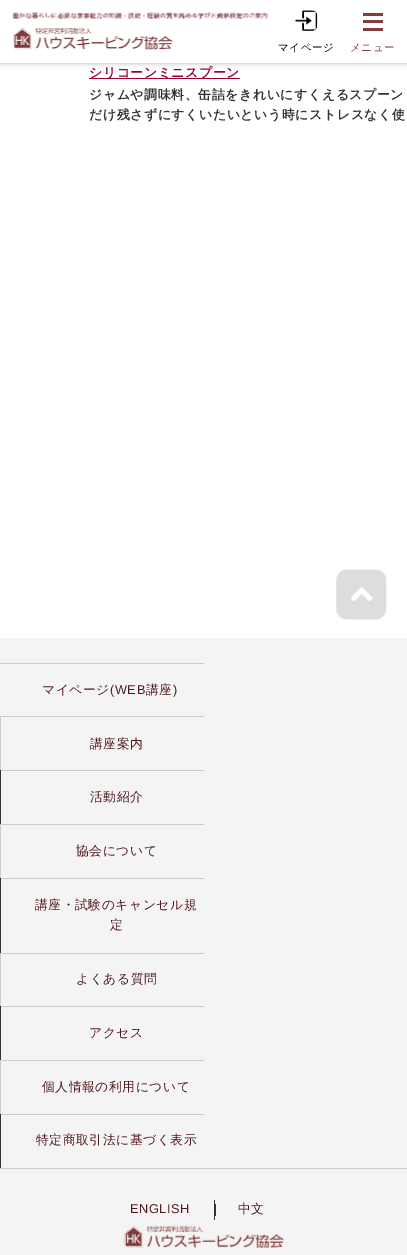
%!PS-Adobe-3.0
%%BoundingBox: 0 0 407 1255
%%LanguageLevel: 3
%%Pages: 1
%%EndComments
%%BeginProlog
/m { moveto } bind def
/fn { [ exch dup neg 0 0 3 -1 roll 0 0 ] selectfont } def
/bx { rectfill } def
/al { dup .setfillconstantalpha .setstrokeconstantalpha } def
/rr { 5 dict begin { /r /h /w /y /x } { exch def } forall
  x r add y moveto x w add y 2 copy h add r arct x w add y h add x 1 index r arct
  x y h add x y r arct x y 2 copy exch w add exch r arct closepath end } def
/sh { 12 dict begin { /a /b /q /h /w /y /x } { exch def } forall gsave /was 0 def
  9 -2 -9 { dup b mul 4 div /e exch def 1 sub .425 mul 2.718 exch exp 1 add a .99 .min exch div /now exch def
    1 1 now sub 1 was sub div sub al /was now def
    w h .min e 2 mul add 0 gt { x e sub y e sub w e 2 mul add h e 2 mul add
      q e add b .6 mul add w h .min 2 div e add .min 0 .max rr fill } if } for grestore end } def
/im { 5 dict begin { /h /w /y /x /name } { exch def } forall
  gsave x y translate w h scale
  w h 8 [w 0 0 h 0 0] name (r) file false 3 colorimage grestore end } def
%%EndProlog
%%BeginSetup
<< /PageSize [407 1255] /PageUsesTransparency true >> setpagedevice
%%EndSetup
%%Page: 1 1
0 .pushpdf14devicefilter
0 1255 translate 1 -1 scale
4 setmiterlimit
1 setgray
0 0 407 1255 bx
0 setgray
0 0 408 63 0 3 0.3 sh
1 setgray
0 0 407 63 bx
(image0.raw) 12 12 256 7 im
(image1.raw) 13 28 160 22 im
(image2.raw) 295 10 23 21 im
/WenQuanYiZenHei-Medium 10.5 fn
0 setgray
278 51 m 0.6 0 (マイページ) ashow
0.506 0.235 0.243 setrgbcolor
363 13 20 3 bx
363 20 20 3 bx
363 28 20 3 bx
350 51 m 0.6 0 (メニュー) ashow
0.6 0 0.2 setrgbcolor
89 78 151 1 bx
/WenQuanYiZenHei-Bold 12.9 fn
89 77 m 0.6 0 (シリコーンミニスプーン) ashow
0.2 setgray
89 99 m 0.6 0 (ジャムや調味料、缶詰をきれいにすくえるスプーン) ashow
89 119 m 0.6 0 (だけ残さずにすくいたいという時にストレスなく使) ashow
(image3.raw) 336 569 51 51 im
0.957 setgray
0 638 407 617 bx
0.8 setgray
0 1168 407 1 bx
0 663 204 1 bx
/WenQuanYiZenHei-Medium 12.75 fn
0.318 0.098 0.118 setrgbcolor
42 694 m 0.6 0 (マイページ) ashow
/LiberationSans-Regular 12.75 fn
110 694 m 0.6 0 (\(WEB) ashow
/WenQuanYiZenHei-Medium 12.75 fn
146 694 m 0.6 0 (講座) ashow
/LiberationSans-Regular 12.75 fn
173 694 m 0.6 0 (\)) ashow
0.8 setgray
0 716 204 1 bx
0 716 1 54 bx
/WenQuanYiZenHei-Medium 12.75 fn
0.318 0.098 0.118 setrgbcolor
90 748 m 0.6 0 (講座案内) ashow
0.8 setgray
0 770 204 1 bx
0.2 setgray
0 770 1 54 bx
0.318 0.098 0.118 setrgbcolor
90 801 m 0.6 0 (活動紹介) ashow
0.8 setgray
0 824 204 1 bx
0 824 1 54 bx
0.318 0.098 0.118 setrgbcolor
76 855 m 0.6 0 (協会について) ashow
0.8 setgray
0 878 204 1 bx
0.2 setgray
0 878 1 75 bx
0.318 0.098 0.118 setrgbcolor
35 909 m 0.6 0 (講座・試験のキャンセル規) ashow
110 929 m 0.6 0 (定) ashow
0.8 setgray
0 953 204 1 bx
0 953 1 53 bx
0.318 0.098 0.118 setrgbcolor
76 983 m 0.6 0 (よくある質問) ashow
0.8 setgray
0 1006 204 1 bx
0.2 setgray
0 1006 1 54 bx
0.318 0.098 0.118 setrgbcolor
89 1037 m 0.6 0 (アクセス) ashow
0.8 setgray
0 1060 204 1 bx
0 1060 1 54 bx
0.318 0.098 0.118 setrgbcolor
42 1091 m 0.6 0 (個人情報の利用について) ashow
0.8 setgray
0 1114 204 1 bx
0.2 setgray
0 1114 1 54 bx
0.318 0.098 0.118 setrgbcolor
36 1144 m 0.6 0 (特定商取引法に基づく表示) ashow
/LiberationSans-Regular 12.75 fn
130 1213 m 0.6 0 (ENGLISH) ashow
0.2 setgray
214 1200 1 20 bx
215 1204 1 12 bx
/WenQuanYiZenHei-Medium 12.75 fn
0.318 0.098 0.118 setrgbcolor
238 1213 m 0.6 0 (中文) ashow
(image4.raw) 123 1225 161 23 im
.poppdf14devicefilter showpage
%%EOF
